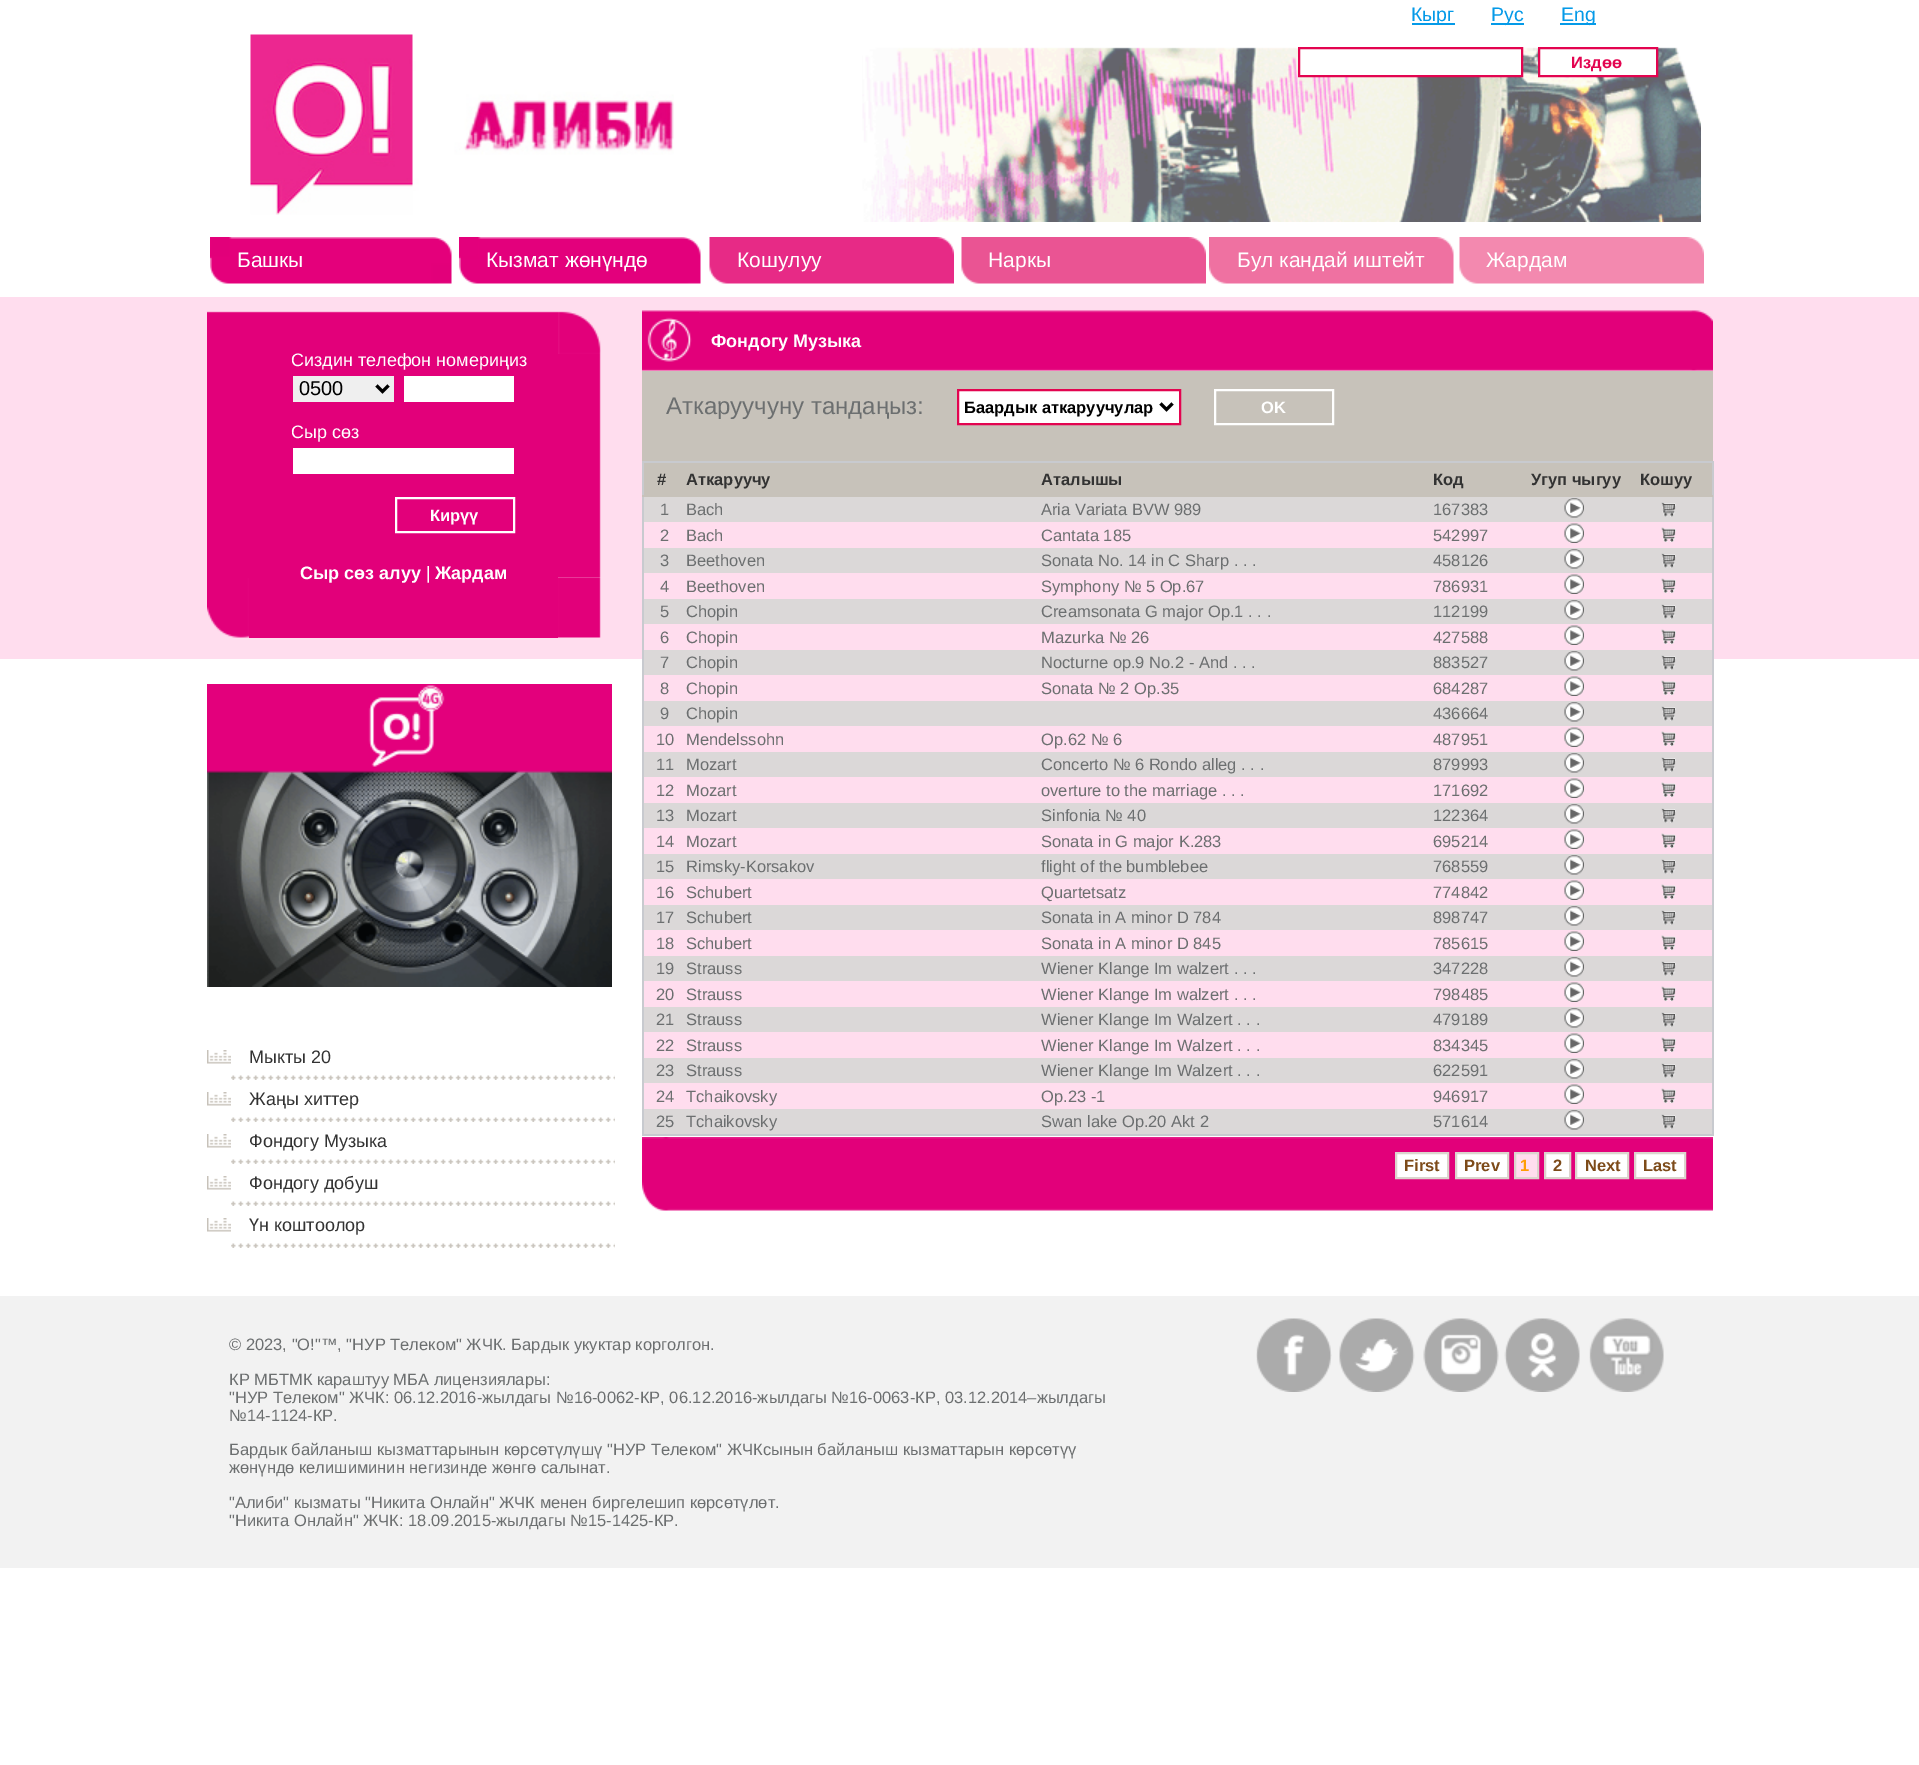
%!PS-Adobe-3.0
%%BoundingBox: 0 0 1919 1765
%%LanguageLevel: 3
%%Pages: 1
%%EndComments
%%BeginProlog
/m { moveto } bind def
/l { lineto } bind def
/h { closepath } bind def
/f { fill } bind def
/S { stroke } bind def
/q { gsave } bind def
/Q { grestore } bind def
/w { setlinewidth } bind def
/fn { [ exch dup neg 0 0 3 -1 roll 0 0 ] selectfont } def
/tx { moveto show } def
/bx { rectfill } def
/im { 5 dict begin { /h /w /y /x /name } { exch def } forall
  gsave x y translate w h scale
  w h 8 [w 0 0 h 0 0] name (r) file false 3 colorimage grestore end } def
%%EndProlog
%%BeginSetup
<< /PageSize [1919 1765] >> setpagedevice
%%EndSetup
%%Page: 1 1
0 1765 translate 1 -1 scale
4 setmiterlimit
1 setgray
0 0 1919 1765 bx
0.016 0.604 0.91 setrgbcolor
1412 23 43 2 bx
/LiberationSans-Regular 19.5 fn
(Кырг) 1411 21 tx
1491 23 33 2 bx
(Рус) 1491 21 tx
1560 23 36 2 bx
(Eng) 1561 21 tx
(image0.raw) 250 34 424 181 im
(image1.raw) 862 47 839 175 im
1 setgray
1299 48 m 1522 48 l 1522 76 l 1299 76 l h q f Q
0.89 0.016 0.314 setrgbcolor
2 w
S
1 setgray
1539 48 m 1657 48 l 1657 76 l 1539 76 l h q f Q
0.89 0.016 0.314 setrgbcolor
S
/LiberationSans-Bold 16.5 fn
(Издөө) 1571 68 tx
(image2.raw) 210 237 242 47 im
/LiberationSans-Regular 21 fn
1 setgray
(Башкы) 237 267 tx
(image3.raw) 459 237 242 47 im
(Кызмат жөнүндө) 486 267 tx
(image4.raw) 709 237 245 47 im
(Кошулуу) 737 267 tx
(image5.raw) 961 237 245 47 im
(Наркы) 988 267 tx
(image6.raw) 1209 237 245 47 im
(Бул кандай иштейт) 1237 267 tx
(image7.raw) 1459 237 245 47 im
(Жардам) 1486 267 tx
1 0.867 0.933 setrgbcolor
0 297 1919 362 bx
(image8.raw) 207 311 42 43 im
(image9.raw) 249 311 309 43 im
(image10.raw) 558 311 43 43 im
0.886 0 0.478 setrgbcolor
207 354 351 224 bx
/LiberationSans-Regular 18 fn
1 setgray
(Сиздин телефон номериңиз) 291 366 tx
0.937 setgray
293 376 101 26 bx
0 setgray
3 w
376.5 385.5 m 382.5 391.5 l 388.5 385.5 l S
/LiberationSans-Regular 20 fn
(0500) 299 395 tx
1 setgray
404 376 110 26 bx
/LiberationSans-Regular 18 fn
(Сыр сөз) 291 438 tx
293 448 221 26 bx
2 w
396 498 118 34 rectstroke
/LiberationSans-Bold 16.5 fn
(Кирүү) 430 521 tx
0.886 0 0.478 setrgbcolor
249 578 309 60 bx
/LiberationSans-Bold 18 fn
1 setgray
(Сыр сөз алуу) 300 579 tx
/LiberationSans-Regular 18 fn
(|) 426 579 tx
/LiberationSans-Bold 18 fn
(Жардам) 435 579 tx
(image11.raw) 558 354 43 224 im
(image12.raw) 207 578 42 60 im
(image13.raw) 558 577 43 61 im
(image14.raw) 207 684 405 303 im
(image15.raw) 207 1050 24 14 im
/LiberationSans-Regular 18 fn
0.2 setgray
(Мыкты 20) 249 1063 tx
(image16.raw) 231 1075 384 5 im
(image15.raw) 207 1092 24 14 im
(Жаңы хиттер) 249 1105 tx
(image17.raw) 231 1117 384 5 im
(image15.raw) 207 1134 24 14 im
(Фондогу Музыка) 249 1147 tx
(image18.raw) 231 1159 384 5 im
(image15.raw) 207 1176 24 14 im
(Фондогу добуш) 249 1189 tx
(image17.raw) 231 1201 384 5 im
(image15.raw) 207 1218 24 14 im
(Үн коштоолор) 249 1231 tx
(image17.raw) 231 1243 384 5 im
(image19.raw) 642 310 1071 61 im
(image20.raw) 642 312 57 50 im
/LiberationSans-Bold 18 fn
1 setgray
(Фондогу Музыка) 711 347 tx
0.78 0.761 0.729 setrgbcolor
642 371 1071 90 bx
/LiberationSans-Regular 24 fn
0.424 0.435 0.439 setrgbcolor
(Аткаруучуну тандаңыз:) 666 414 tx
1 setgray
958 390 m 1180 390 l 1180 424 l 958 424 l h q f Q
0.89 0.016 0.314 setrgbcolor
S
0 setgray
3 w
1160.5 403.5 m 1166.5 409.5 l 1172.5 403.5 l S
/LiberationSans-Bold 16.5 fn
(Баардык аткаруучулар) 964 413 tx
1 setgray
2 w
1215 390 118 34 rectstroke
(OK) 1261 413 tx
0.784 0.792 0.812 setrgbcolor
642 461 1071 2 bx
1712 461 2 675 bx
642 1134 1071 2 bx
642 461 2 675 bx
0.78 0.761 0.729 setrgbcolor
644 463 37 32 bx
642 495 39 2 bx
0.2 setgray
(#) 657 485 tx
0.78 0.761 0.729 setrgbcolor
681 463 941 34 bx
0.2 setgray
(Аткаруучу) 686 485 tx
(Аталышы) 1041 485 tx
(Код) 1433 485 tx
(Угуп чыгуу) 1531 485 tx
0.78 0.761 0.729 setrgbcolor
1622 463 90 32 bx
1620 495 93 2 bx
0.2 setgray
(Кошуу) 1640 485 tx
0.859 0.847 0.847 setrgbcolor
644 497 1068 25 bx
/LiberationSans-Regular 16.5 fn
0.424 0.435 0.439 setrgbcolor
(1) 660 515 tx
(Bach) 686 515 tx
(Aria Variata BVW 989) 1041 515 tx
(167383) 1433 515 tx
(image21.raw) 1564 498 20 20 im
(image22.raw) 1661 502 15 15 im
(2) 660 541 tx
(Bach) 686 541 tx
(Cantata 185) 1041 541 tx
(542997) 1433 541 tx
(image23.raw) 1564 523 20 20 im
(image24.raw) 1661 527 15 15 im
0.859 0.847 0.847 setrgbcolor
644 548 1068 25 bx
0.424 0.435 0.439 setrgbcolor
(3) 660 566 tx
(Beethoven) 686 566 tx
(Sonata No. 14 in C Sharp . . .) 1041 566 tx
(458126) 1433 566 tx
(image21.raw) 1564 549 20 20 im
(image22.raw) 1661 553 15 15 im
(4) 660 592 tx
(Beethoven) 686 592 tx
(Symphony № 5 Op.67) 1041 592 tx
(786931) 1433 592 tx
(image23.raw) 1564 574 20 20 im
(image24.raw) 1661 578 15 15 im
0.859 0.847 0.847 setrgbcolor
644 599 1068 25 bx
0.424 0.435 0.439 setrgbcolor
(5) 660 617 tx
(Chopin) 686 617 tx
(Creamsonata G major Op.1 . . .) 1041 617 tx
(112199) 1433 617 tx
(image21.raw) 1564 600 20 20 im
(image22.raw) 1661 604 15 15 im
(6) 660 643 tx
(Chopin) 686 643 tx
(Mazurka № 26) 1041 643 tx
(427588) 1433 643 tx
(image23.raw) 1564 625 20 20 im
(image24.raw) 1661 629 15 15 im
0.859 0.847 0.847 setrgbcolor
644 650 1068 25 bx
0.424 0.435 0.439 setrgbcolor
(7) 660 668 tx
(Chopin) 686 668 tx
(Nocturne op.9 No.2 - And . . .) 1041 668 tx
(883527) 1433 668 tx
(image21.raw) 1564 651 20 20 im
(image22.raw) 1661 655 15 15 im
1 0.867 0.933 setrgbcolor
644 675 1068 26 bx
0.424 0.435 0.439 setrgbcolor
(8) 660 694 tx
(Chopin) 686 694 tx
(Sonata № 2 Op.35) 1041 694 tx
(684287) 1433 694 tx
(image23.raw) 1564 676 20 20 im
(image24.raw) 1661 680 15 15 im
0.859 0.847 0.847 setrgbcolor
644 701 1068 25 bx
0.424 0.435 0.439 setrgbcolor
(9) 660 719 tx
(Chopin) 686 719 tx
(436664) 1433 719 tx
(image21.raw) 1564 702 20 20 im
(image22.raw) 1661 706 15 15 im
1 0.867 0.933 setrgbcolor
644 726 1068 26 bx
0.424 0.435 0.439 setrgbcolor
(10) 656 745 tx
(Mendelssohn) 686 745 tx
(Op.62 № 6) 1041 745 tx
(487951) 1433 745 tx
(image23.raw) 1564 727 20 20 im
(image24.raw) 1661 731 15 15 im
0.859 0.847 0.847 setrgbcolor
644 752 1068 25 bx
0.424 0.435 0.439 setrgbcolor
(11) 656 770 tx
(Mozart) 686 770 tx
(Concerto № 6 Rondo alleg . . .) 1041 770 tx
(879993) 1433 770 tx
(image21.raw) 1564 753 20 20 im
(image22.raw) 1661 757 15 15 im
1 0.867 0.933 setrgbcolor
644 777 1068 26 bx
0.424 0.435 0.439 setrgbcolor
(12) 656 796 tx
(Mozart) 686 796 tx
(overture to the marriage . . .) 1041 796 tx
(171692) 1433 796 tx
(image23.raw) 1564 778 20 20 im
(image24.raw) 1661 782 15 15 im
0.859 0.847 0.847 setrgbcolor
644 803 1068 25 bx
0.424 0.435 0.439 setrgbcolor
(13) 656 821 tx
(Mozart) 686 821 tx
(Sinfonia № 40) 1041 821 tx
(122364) 1433 821 tx
(image21.raw) 1564 804 20 20 im
(image22.raw) 1661 808 15 15 im
1 0.867 0.933 setrgbcolor
644 828 1068 26 bx
0.424 0.435 0.439 setrgbcolor
(14) 656 847 tx
(Mozart) 686 847 tx
(Sonata in G major K.283) 1041 847 tx
(695214) 1433 847 tx
(image23.raw) 1564 829 20 20 im
(image24.raw) 1661 833 15 15 im
0.859 0.847 0.847 setrgbcolor
644 854 1068 25 bx
0.424 0.435 0.439 setrgbcolor
(15) 656 872 tx
(Rimsky-Korsakov) 686 872 tx
(flight of the bumblebee) 1041 872 tx
(768559) 1433 872 tx
(image21.raw) 1564 855 20 20 im
(image22.raw) 1661 859 15 15 im
1 0.867 0.933 setrgbcolor
644 879 1068 26 bx
0.424 0.435 0.439 setrgbcolor
(16) 656 898 tx
(Schubert) 686 898 tx
(Quartetsatz) 1041 898 tx
(774842) 1433 898 tx
(image23.raw) 1564 880 20 20 im
(image24.raw) 1661 884 15 15 im
0.859 0.847 0.847 setrgbcolor
644 905 1068 25 bx
0.424 0.435 0.439 setrgbcolor
(17) 656 923 tx
(Schubert) 686 923 tx
(Sonata in A minor D 784) 1041 923 tx
(898747) 1433 923 tx
(image21.raw) 1564 906 20 20 im
(image22.raw) 1661 910 15 15 im
1 0.867 0.933 setrgbcolor
644 930 1068 26 bx
0.424 0.435 0.439 setrgbcolor
(18) 656 949 tx
(Schubert) 686 949 tx
(Sonata in A minor D 845) 1041 949 tx
(785615) 1433 949 tx
(image23.raw) 1564 931 20 20 im
(image24.raw) 1661 935 15 15 im
0.859 0.847 0.847 setrgbcolor
644 956 1068 25 bx
0.424 0.435 0.439 setrgbcolor
(19) 656 974 tx
(Strauss) 686 974 tx
(Wiener Klange Im walzert . . .) 1041 974 tx
(347228) 1433 974 tx
(image21.raw) 1564 957 20 20 im
(image22.raw) 1661 961 15 15 im
1 0.867 0.933 setrgbcolor
644 981 1068 26 bx
0.424 0.435 0.439 setrgbcolor
(20) 656 1000 tx
(Strauss) 686 1000 tx
(Wiener Klange Im walzert . . .) 1041 1000 tx
(798485) 1433 1000 tx
(image23.raw) 1564 982 20 20 im
(image24.raw) 1661 986 15 15 im
0.859 0.847 0.847 setrgbcolor
644 1007 1068 25 bx
0.424 0.435 0.439 setrgbcolor
(21) 656 1025 tx
(Strauss) 686 1025 tx
(Wiener Klange Im Walzert . . .) 1041 1025 tx
(479189) 1433 1025 tx
(image21.raw) 1564 1008 20 20 im
(image22.raw) 1661 1012 15 15 im
1 0.867 0.933 setrgbcolor
644 1032 1068 26 bx
0.424 0.435 0.439 setrgbcolor
(22) 656 1051 tx
(Strauss) 686 1051 tx
(Wiener Klange Im Walzert . . .) 1041 1051 tx
(834345) 1433 1051 tx
(image23.raw) 1564 1033 20 20 im
(image24.raw) 1661 1037 15 15 im
0.859 0.847 0.847 setrgbcolor
644 1058 1068 25 bx
0.424 0.435 0.439 setrgbcolor
(23) 656 1076 tx
(Strauss) 686 1076 tx
(Wiener Klange Im Walzert . . .) 1041 1076 tx
(622591) 1433 1076 tx
(image21.raw) 1564 1059 20 20 im
(image22.raw) 1661 1063 15 15 im
1 0.867 0.933 setrgbcolor
644 1083 1068 26 bx
0.424 0.435 0.439 setrgbcolor
(24) 656 1102 tx
(Tchaikovsky) 686 1102 tx
(Op.23 -1) 1041 1102 tx
(946917) 1433 1102 tx
(image23.raw) 1564 1084 20 20 im
(image24.raw) 1661 1088 15 15 im
0.859 0.847 0.847 setrgbcolor
644 1109 1068 25 bx
0.424 0.435 0.439 setrgbcolor
(25) 656 1127 tx
(Tchaikovsky) 686 1127 tx
(Swan lake Op.20 Akt 2) 1041 1127 tx
(571614) 1433 1127 tx
(image21.raw) 1564 1110 20 20 im
(image22.raw) 1661 1114 15 15 im
(image25.raw) 642 1137 1071 74 im
1 setgray
1396 1153 m 1448 1153 l 1448 1178 l 1396 1178 l h q f Q
0.859 0.835 0.804 setrgbcolor
S
/LiberationSans-Bold 16.5 fn
0.49 0.294 0.098 setrgbcolor
(First) 1404 1171 tx
1 setgray
1456 1153 m 1508 1153 l 1508 1178 l 1456 1178 l h q f Q
0.859 0.835 0.804 setrgbcolor
S
0.49 0.294 0.098 setrgbcolor
(Prev) 1464 1171 tx
1 0.867 0.933 setrgbcolor
1515 1153 m 1538 1153 l 1538 1178 l 1515 1178 l h q f Q
0.859 0.835 0.804 setrgbcolor
S
1 0.62 0.016 setrgbcolor
(1) 1520 1171 tx
1 setgray
1545 1153 m 1570 1153 l 1570 1178 l 1545 1178 l h q f Q
0.859 0.835 0.804 setrgbcolor
S
0.49 0.294 0.098 setrgbcolor
(2) 1553 1171 tx
1 setgray
1576 1153 m 1628 1153 l 1628 1178 l 1576 1178 l h q f Q
0.859 0.835 0.804 setrgbcolor
S
0.49 0.294 0.098 setrgbcolor
(Next) 1585 1171 tx
1 setgray
1635 1153 m 1685 1153 l 1685 1178 l 1635 1178 l h q f Q
0.859 0.835 0.804 setrgbcolor
S
0.49 0.294 0.098 setrgbcolor
(Last) 1643 1171 tx
0.949 setgray
0 1296 1919 272 bx
/LiberationSans-Regular 16.5 fn
0.424 0.435 0.439 setrgbcolor
(© 2023, "O!"™, "НУР Телеком" ЖЧК. Бардык укуктар корголгон.) 229 1350 tx
(КР МБТМК караштуу МБА лицензиялары:) 229 1385 tx
("НУР Телеком" ЖЧК: 06.12.2016-жылдагы №16-0062-КР, 06.12.2016-жылдагы №16-0063-КР, 03.12.2014–жылдагы) 229 1403 tx
(№14-1124-КР.) 229 1421 tx
(Бардык байланыш кызматтарынын көрсөтүлүшү "НУР Телеком" ЖЧКсынын байланыш кызматтарын көрсөтүү) 229 1455 tx
(жөнүндө келишиминин негизинде жөнгө салынат.) 229 1473 tx
("Алиби" кызматы "Никита Онлайн" ЖЧК менен биргелешип көрсөтүлөт.) 229 1508 tx
("Никита Онлайн" ЖЧК: 18.09.2015-жылдагы №15-1425-КР.) 229 1526 tx
(image26.raw) 1256 1318 76 74 im
(image27.raw) 1339 1318 76 74 im
(image28.raw) 1423 1318 76 74 im
(image29.raw) 1504 1318 76 74 im
(image30.raw) 1589 1318 75 74 im
showpage
%%EOF
